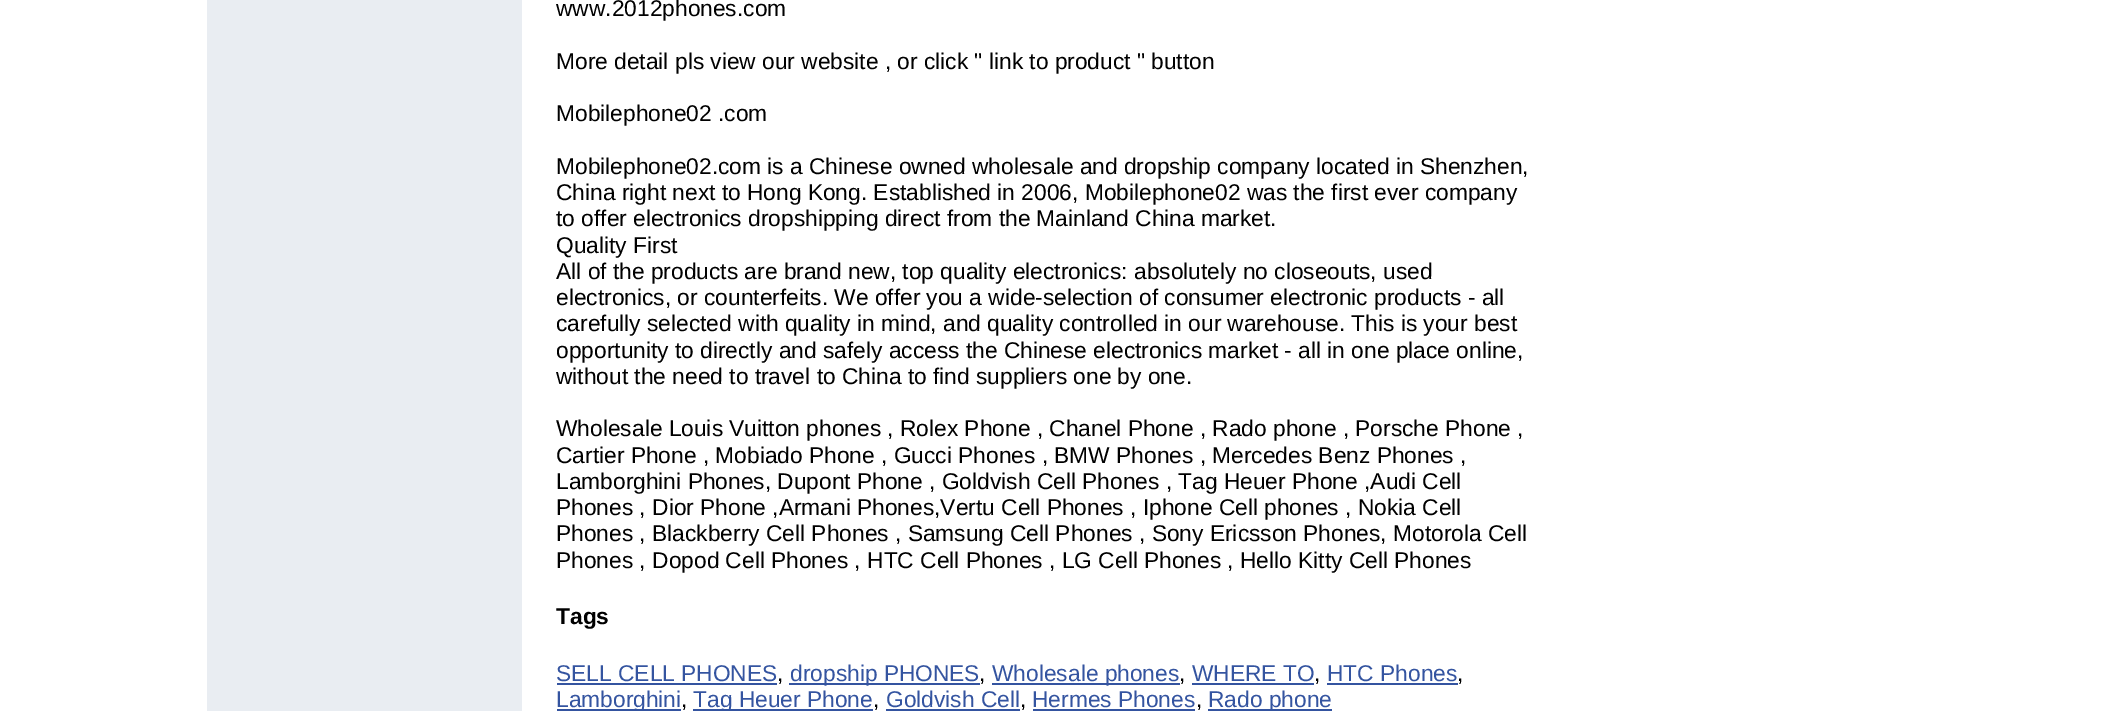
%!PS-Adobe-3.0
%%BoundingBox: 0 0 2125 711
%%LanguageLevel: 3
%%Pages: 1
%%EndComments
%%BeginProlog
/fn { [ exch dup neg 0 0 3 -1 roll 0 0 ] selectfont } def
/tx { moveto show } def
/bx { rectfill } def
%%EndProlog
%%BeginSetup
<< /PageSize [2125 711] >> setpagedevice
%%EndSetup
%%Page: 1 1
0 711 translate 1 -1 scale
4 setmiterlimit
1 setgray
0 0 2125 711 bx
0.914 0.929 0.949 setrgbcolor
207 0 315 711 bx
/LiberationSans-Regular 22.75 fn
0 setgray
(www.2012phones.com) 556 16 tx
(More detail pls view our website , or click " link to product " button) 556 69 tx
(Mobilephone02 .com) 556 121 tx
(Mobilephone02.com is a Chinese owned wholesale and dropship company located in Shenzhen,) 556 174 tx
(China right next to Hong Kong. Established in 2006, Mobilephone02 was the first ever company) 556 200 tx
(to offer electronics dropshipping direct from the Mainland China market.) 556 226 tx
(Quality First) 556 253 tx
(All of the products are brand new, top quality electronics: absolutely no closeouts, used) 556 279 tx
(electronics, or counterfeits. We offer you a wide-selection of consumer electronic products - all) 556 305 tx
(carefully selected with quality in mind, and quality controlled in our warehouse. This is your best) 556 331 tx
(opportunity to directly and safely access the Chinese electronics market - all in one place online,) 556 358 tx
(without the need to travel to China to find suppliers one by one.) 556 384 tx
(Wholesale Louis Vuitton phones , Rolex Phone , Chanel Phone , Rado phone , Porsche Phone ,) 556 436 tx
(Cartier Phone , Mobiado Phone , Gucci Phones , BMW Phones , Mercedes Benz Phones ,) 556 463 tx
(Lamborghini Phones, Dupont Phone , Goldvish Cell Phones , Tag Heuer Phone ,Audi Cell) 556 489 tx
(Phones , Dior Phone ,Armani Phones,Vertu Cell Phones , Iphone Cell phones , Nokia Cell) 556 515 tx
(Phones , Blackberry Cell Phones , Samsung Cell Phones , Sony Ericsson Phones, Motorola Cell) 556 541 tx
(Phones , Dopod Cell Phones , HTC Cell Phones , LG Cell Phones , Hello Kitty Cell Phones) 556 568 tx
/LiberationSans-Bold 22.75 fn
(Tags) 556 624 tx
/LiberationSans-Regular 22.75 fn
0.204 0.329 0.627 setrgbcolor
(SELL CELL PHONES) 556 681 tx
557 683 220 2 bx
0 setgray
(,) 777 681 tx
0.204 0.329 0.627 setrgbcolor
789 683 191 2 bx
(dropship PHONES) 790 681 tx
0 setgray
(,) 979 681 tx
0.204 0.329 0.627 setrgbcolor
992 683 188 2 bx
(Wholesale phones) 992 681 tx
0 setgray
(,) 1179 681 tx
0.204 0.329 0.627 setrgbcolor
(WHERE TO) 1192 681 tx
1192 683 122 2 bx
0 setgray
(,) 1314 681 tx
0.204 0.329 0.627 setrgbcolor
(HTC Phones) 1327 681 tx
1327 683 131 2 bx
0 setgray
(,) 1457 681 tx
0.204 0.329 0.627 setrgbcolor
557 709 124 2 bx
(Lamborghini) 556 707 tx
0 setgray
(,) 681 707 tx
0.204 0.329 0.627 setrgbcolor
693 709 180 2 bx
(Tag Heuer Phone) 693 707 tx
0 setgray
(,) 873 707 tx
0.204 0.329 0.627 setrgbcolor
(Goldvish Cell) 886 707 tx
886 709 134 2 bx
0 setgray
(,) 1020 707 tx
0.204 0.329 0.627 setrgbcolor
(Hermes Phones) 1032 707 tx
1033 709 162 2 bx
0 setgray
(,) 1196 707 tx
0.204 0.329 0.627 setrgbcolor
1208 709 124 2 bx
(Rado phone) 1208 707 tx
showpage
%%EOF
